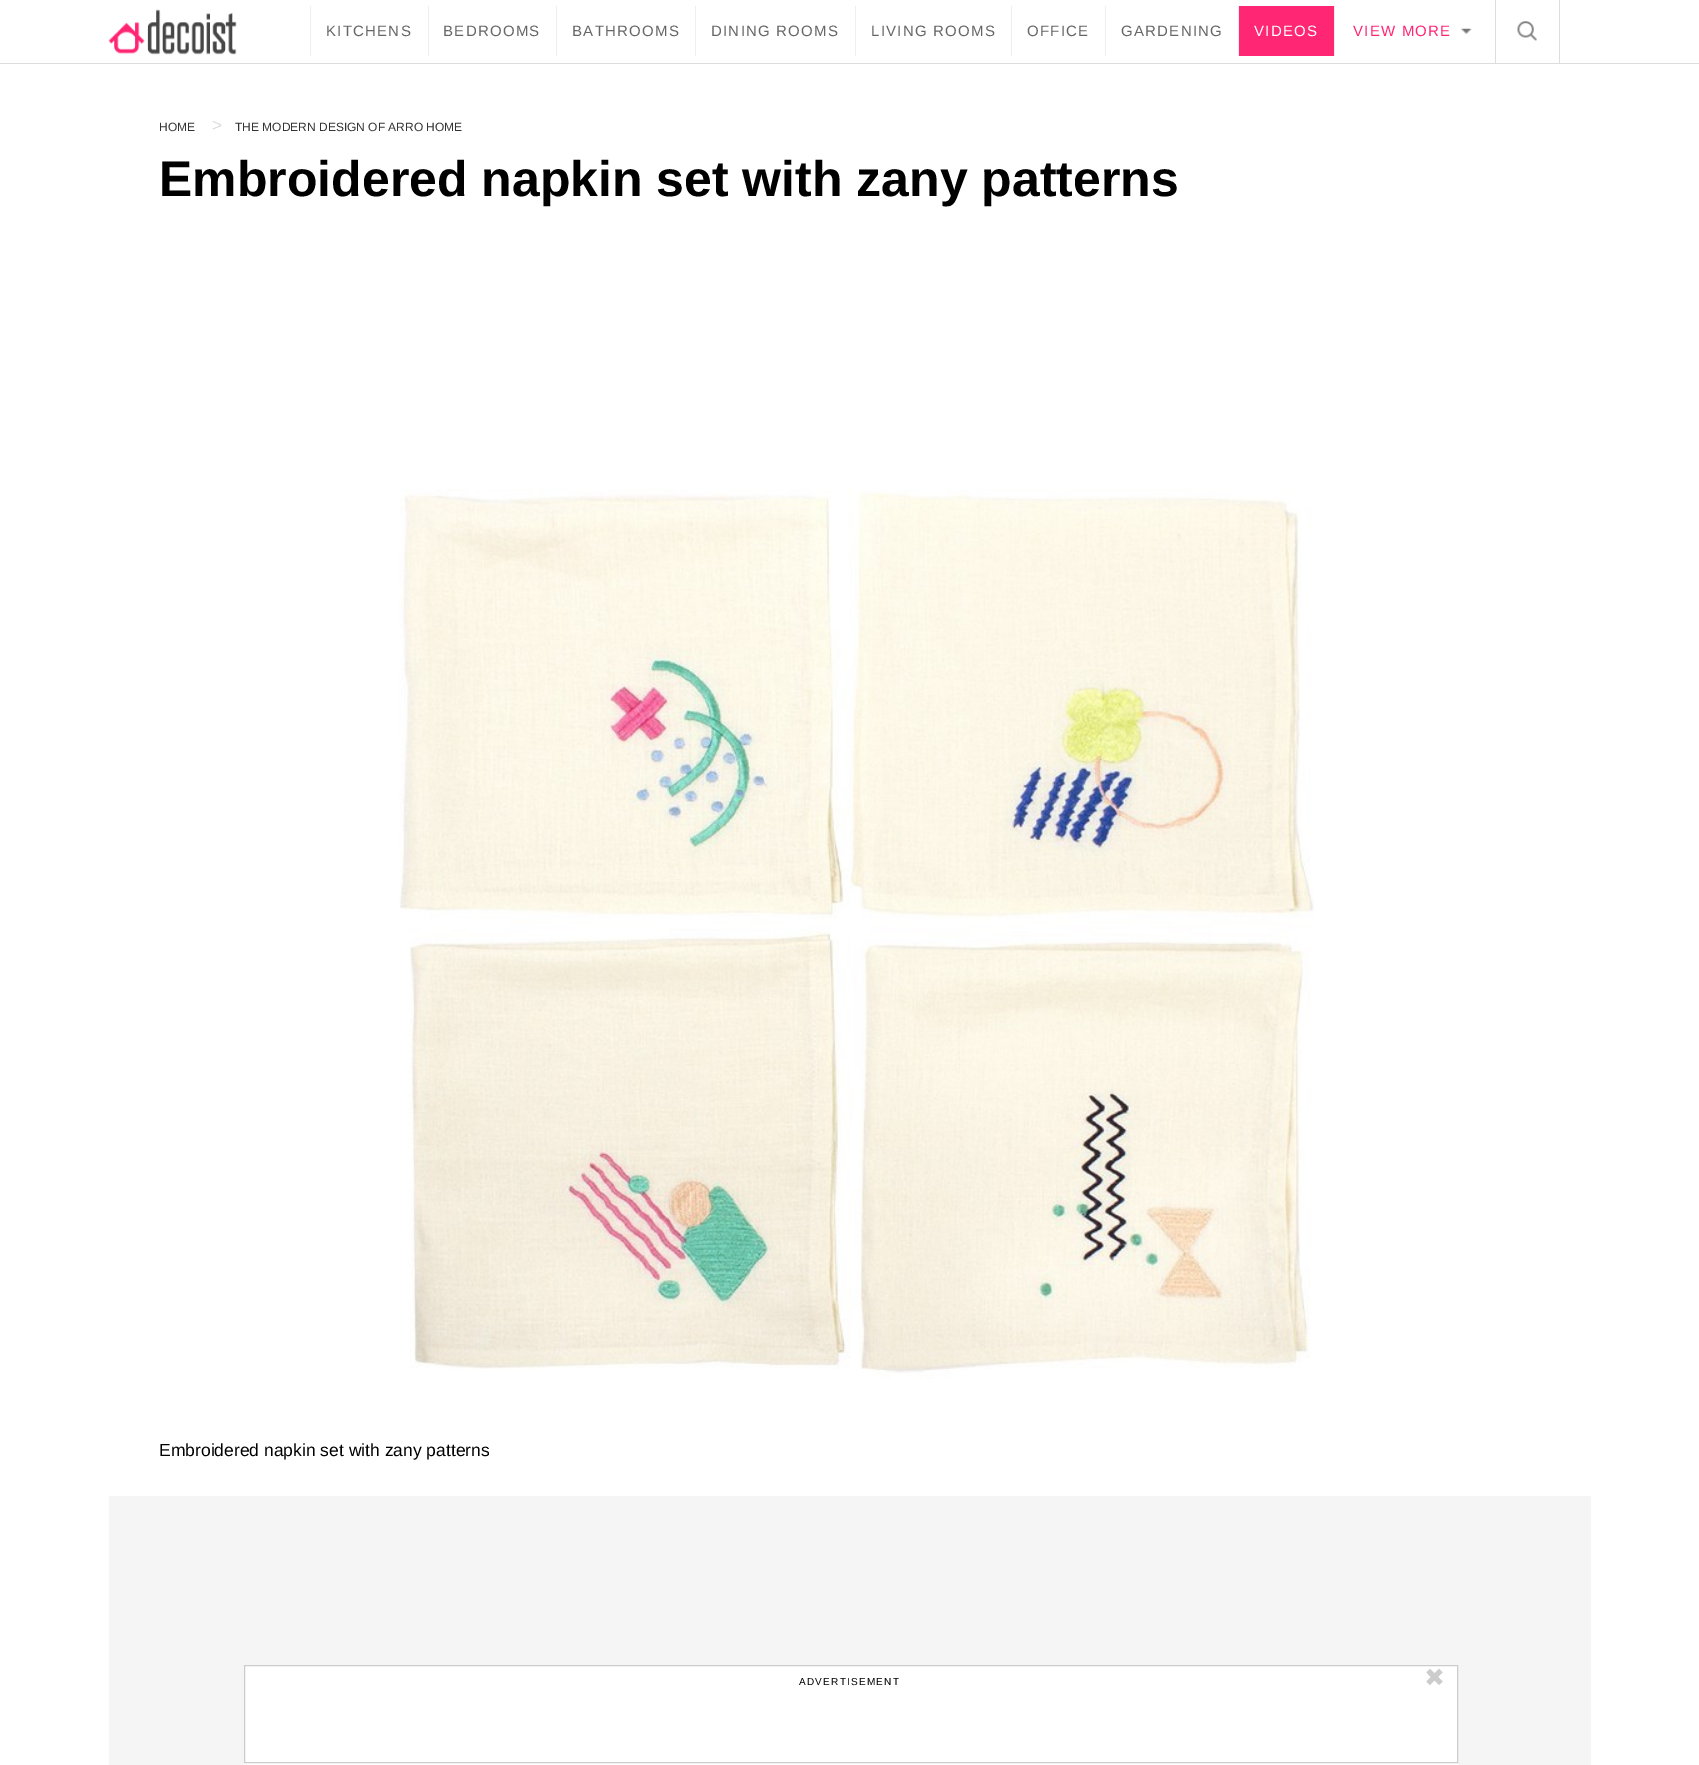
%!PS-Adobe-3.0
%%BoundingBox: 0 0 1699 1765
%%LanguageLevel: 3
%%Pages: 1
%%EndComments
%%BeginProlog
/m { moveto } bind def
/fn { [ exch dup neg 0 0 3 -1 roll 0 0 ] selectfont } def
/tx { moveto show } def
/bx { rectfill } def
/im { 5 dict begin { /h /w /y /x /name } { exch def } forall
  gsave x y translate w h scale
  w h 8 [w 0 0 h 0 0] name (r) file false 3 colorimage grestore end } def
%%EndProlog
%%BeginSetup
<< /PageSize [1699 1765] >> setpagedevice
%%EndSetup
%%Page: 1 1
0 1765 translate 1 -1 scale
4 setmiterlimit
1 setgray
0 0 1699 1765 bx
0.867 setgray
0 63 1699 1 bx
(image0.raw) 108 9 129 46 im
0.933 setgray
428 6 1 50 bx
310 6 1 50 bx
/LiberationSans-Regular 15 fn
0.4 setgray
326 36 m 1.25 0 (KITCHENS) ashow
0.933 setgray
556 6 1 50 bx
0.4 setgray
443 36 m 1.25 0 (BEDROOMS) ashow
0.933 setgray
695 6 1 50 bx
0.4 setgray
572 36 m 1.25 0 (BATHROOMS) ashow
0.933 setgray
855 6 1 50 bx
0.4 setgray
711 36 m 1.25 0 (DINING ROOMS) ashow
0.933 setgray
1011 6 1 50 bx
0.4 setgray
871 36 m 1.25 0 (LIVING ROOMS) ashow
0.933 setgray
1105 6 1 50 bx
0.4 setgray
1027 36 m 1.25 0 (OFFICE) ashow
0.933 setgray
1238 6 1 50 bx
0.4 setgray
1121 36 m 1.25 0 (GARDENING) ashow
1 0.149 0.451 setrgbcolor
1239 6 95 50 bx
0.933 setgray
1334 6 1 50 bx
1 setgray
1254 36 m 1.25 0 (VIDEOS) ashow
(image1.raw) 1461 28 11 6 im
1 0.149 0.451 setrgbcolor
1353 36 m 1.25 0 (VIEW MORE) ashow
0.867 setgray
1559 0 1 63 bx
1495 0 1 63 bx
(image2.raw) 1517 21 20 20 im
/LiberationSans-Regular 12 fn
0.2 setgray
(HOME) 159 131 tx
/LiberationSans-Regular 17.5 fn
0.867 setgray
(>) 212 131 tx
/LiberationSans-Regular 12 fn
0.2 setgray
(THE MODERN DESIGN OF ARRO HOME) 235 131 tx
/LiberationSans-Bold 50 fn
0 setgray
(Embroidered napkin set with zany patterns) 159 196 tx
(image3.raw) 399 489 915 890 im
/LiberationSans-Regular 17.5 fn
(Embroidered napkin set with zany patterns) 159 1456 tx
0.961 setgray
109 1496 1482 269 bx
1 setgray
244 1666 1214 99 bx
0.8 setgray
244.5 1665.5 1213 97 rectstroke
/LiberationSans-Regular 10 fn
0 setgray
799 1685 m 1.25 0 (ADVERTISEMENT) ashow
/DejaVuSans-Regular 25 fn
0.8 setgray
(✖) 1424 1686 tx
showpage
%%EOF
